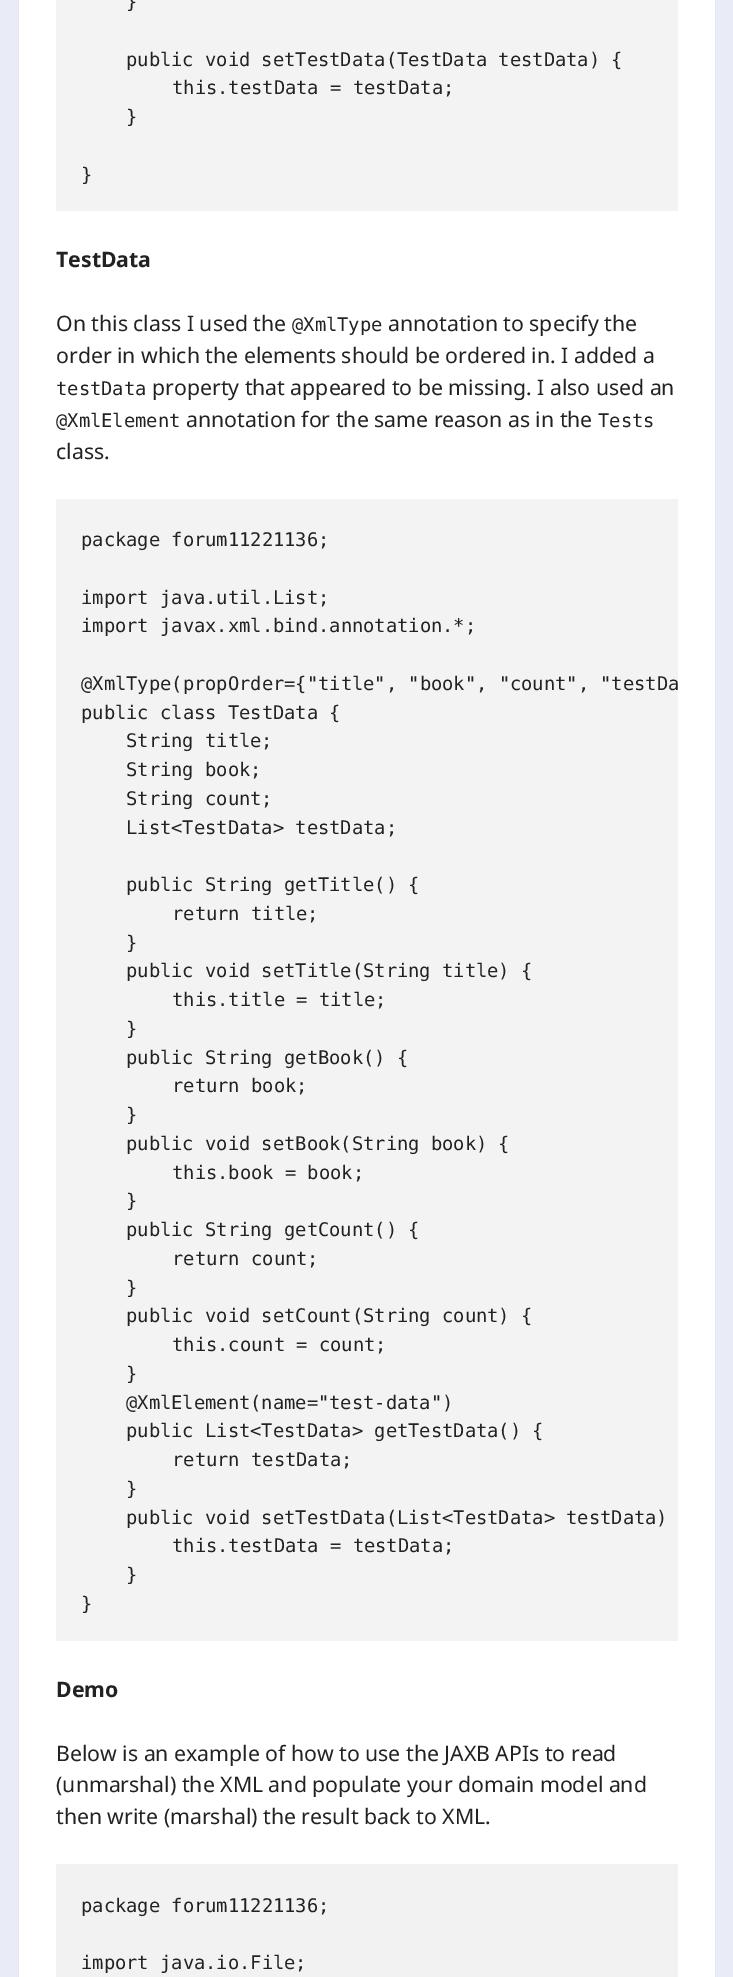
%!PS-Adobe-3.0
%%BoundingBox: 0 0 733 1977
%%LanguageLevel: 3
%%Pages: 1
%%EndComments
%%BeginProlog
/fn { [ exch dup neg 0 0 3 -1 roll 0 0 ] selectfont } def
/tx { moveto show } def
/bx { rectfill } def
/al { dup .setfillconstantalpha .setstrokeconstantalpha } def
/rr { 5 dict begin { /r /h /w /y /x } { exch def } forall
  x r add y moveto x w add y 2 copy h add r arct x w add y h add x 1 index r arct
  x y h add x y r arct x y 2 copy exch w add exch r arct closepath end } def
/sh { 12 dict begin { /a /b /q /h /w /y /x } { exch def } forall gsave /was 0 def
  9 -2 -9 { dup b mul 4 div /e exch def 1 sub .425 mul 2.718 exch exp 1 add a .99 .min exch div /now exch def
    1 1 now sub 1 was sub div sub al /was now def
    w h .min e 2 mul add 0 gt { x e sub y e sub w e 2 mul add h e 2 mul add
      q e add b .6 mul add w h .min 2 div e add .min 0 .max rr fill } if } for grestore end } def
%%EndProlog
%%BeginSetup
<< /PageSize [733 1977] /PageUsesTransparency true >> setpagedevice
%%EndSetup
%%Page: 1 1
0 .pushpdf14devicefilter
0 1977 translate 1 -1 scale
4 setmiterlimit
0.914 0.922 0.969 setrgbcolor
0 0 733 1977 bx
0.855 0.871 0.945 setrgbcolor
19 -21 696 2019 19 0.5 1 sh
1 setgray
19 0 696 1977 bx
0.953 setgray
56 0 622 211 bx
/DejaVuSansMono-Regular 18.75 fn
0.133 setgray
(}) 126 8 tx
(public void setTestData\(TestData testData\) {) 126 66 tx
(this.testData = testData;) 172 94 tx
(}) 126 123 tx
(}) 81 181 tx
/NotoSans-Bold 21.25 fn
(TestData) 56 267 tx
/NotoSans-Regular 21.25 fn
(On this class I used the) 56 331 tx
/DejaVuSansMono-Regular 18.75 fn
(@XmlType) 292 331 tx
/NotoSans-Regular 21.25 fn
(annotation to specify the) 388 331 tx
(order in which the elements should be ordered in. I added a) 56 363 tx
/DejaVuSansMono-Regular 18.75 fn
(testData) 56 395 tx
/NotoSans-Regular 21.25 fn
(property that appeared to be missing. I also used an) 152 395 tx
/DejaVuSansMono-Regular 18.75 fn
(@XmlElement) 56 427 tx
/NotoSans-Regular 21.25 fn
(annotation for the same reason as in the) 186 427 tx
/DejaVuSansMono-Regular 18.75 fn
(Tests) 598 427 tx
/NotoSans-Regular 21.25 fn
(class.) 56 459 tx
0.953 setgray
56 499 622 1142 bx
/DejaVuSansMono-Regular 18.75 fn
0.133 setgray
(package forum11221136;) 81 546 tx
(import java.util.List;) 81 604 tx
(import javax.xml.bind.annotation.*;) 81 632 tx
(@XmlType\(propOrder={"title", "book", "count", "testDa) 81 690 tx
(public class TestData {) 81 719 tx
(String title;) 126 747 tx
(String book;) 126 776 tx
(String count;) 126 805 tx
(List<TestData> testData;) 126 834 tx
(public String getTitle\(\) {) 126 891 tx
(return title;) 172 920 tx
(}) 126 949 tx
(public void setTitle\(String title\) {) 126 977 tx
(this.title = title;) 172 1006 tx
(}) 126 1035 tx
(public String getBook\(\) {) 126 1064 tx
(return book;) 172 1092 tx
(}) 126 1121 tx
(public void setBook\(String book\) {) 126 1150 tx
(this.book = book;) 172 1179 tx
(}) 126 1207 tx
(public String getCount\(\) {) 126 1236 tx
(return count;) 172 1265 tx
(}) 126 1294 tx
(public void setCount\(String count\) {) 126 1322 tx
(this.count = count;) 172 1351 tx
(}) 126 1380 tx
(@XmlElement\(name="test-data"\)) 126 1409 tx
(public List<TestData> getTestData\(\) {) 126 1437 tx
(return testData;) 172 1466 tx
(}) 126 1495 tx
(public void setTestData\(List<TestData> testData\)) 126 1524 tx
(this.testData = testData;) 172 1552 tx
(}) 126 1581 tx
(}) 81 1610 tx
/NotoSans-Bold 21.25 fn
(Demo) 56 1697 tx
/NotoSans-Regular 21.25 fn
(Below is an example of how to use the JAXB APIs to read) 56 1761 tx
(\(unmarshal\) the XML and populate your domain model and) 56 1792 tx
(then write \(marshal\) the result back to XML.) 56 1824 tx
0.949 setgray
56 1864 622 113 bx
/DejaVuSansMono-Regular 18.75 fn
0.133 setgray
(package forum11221136;) 81 1912 tx
(import java.io.File;) 81 1969 tx
.poppdf14devicefilter showpage
%%EOF
